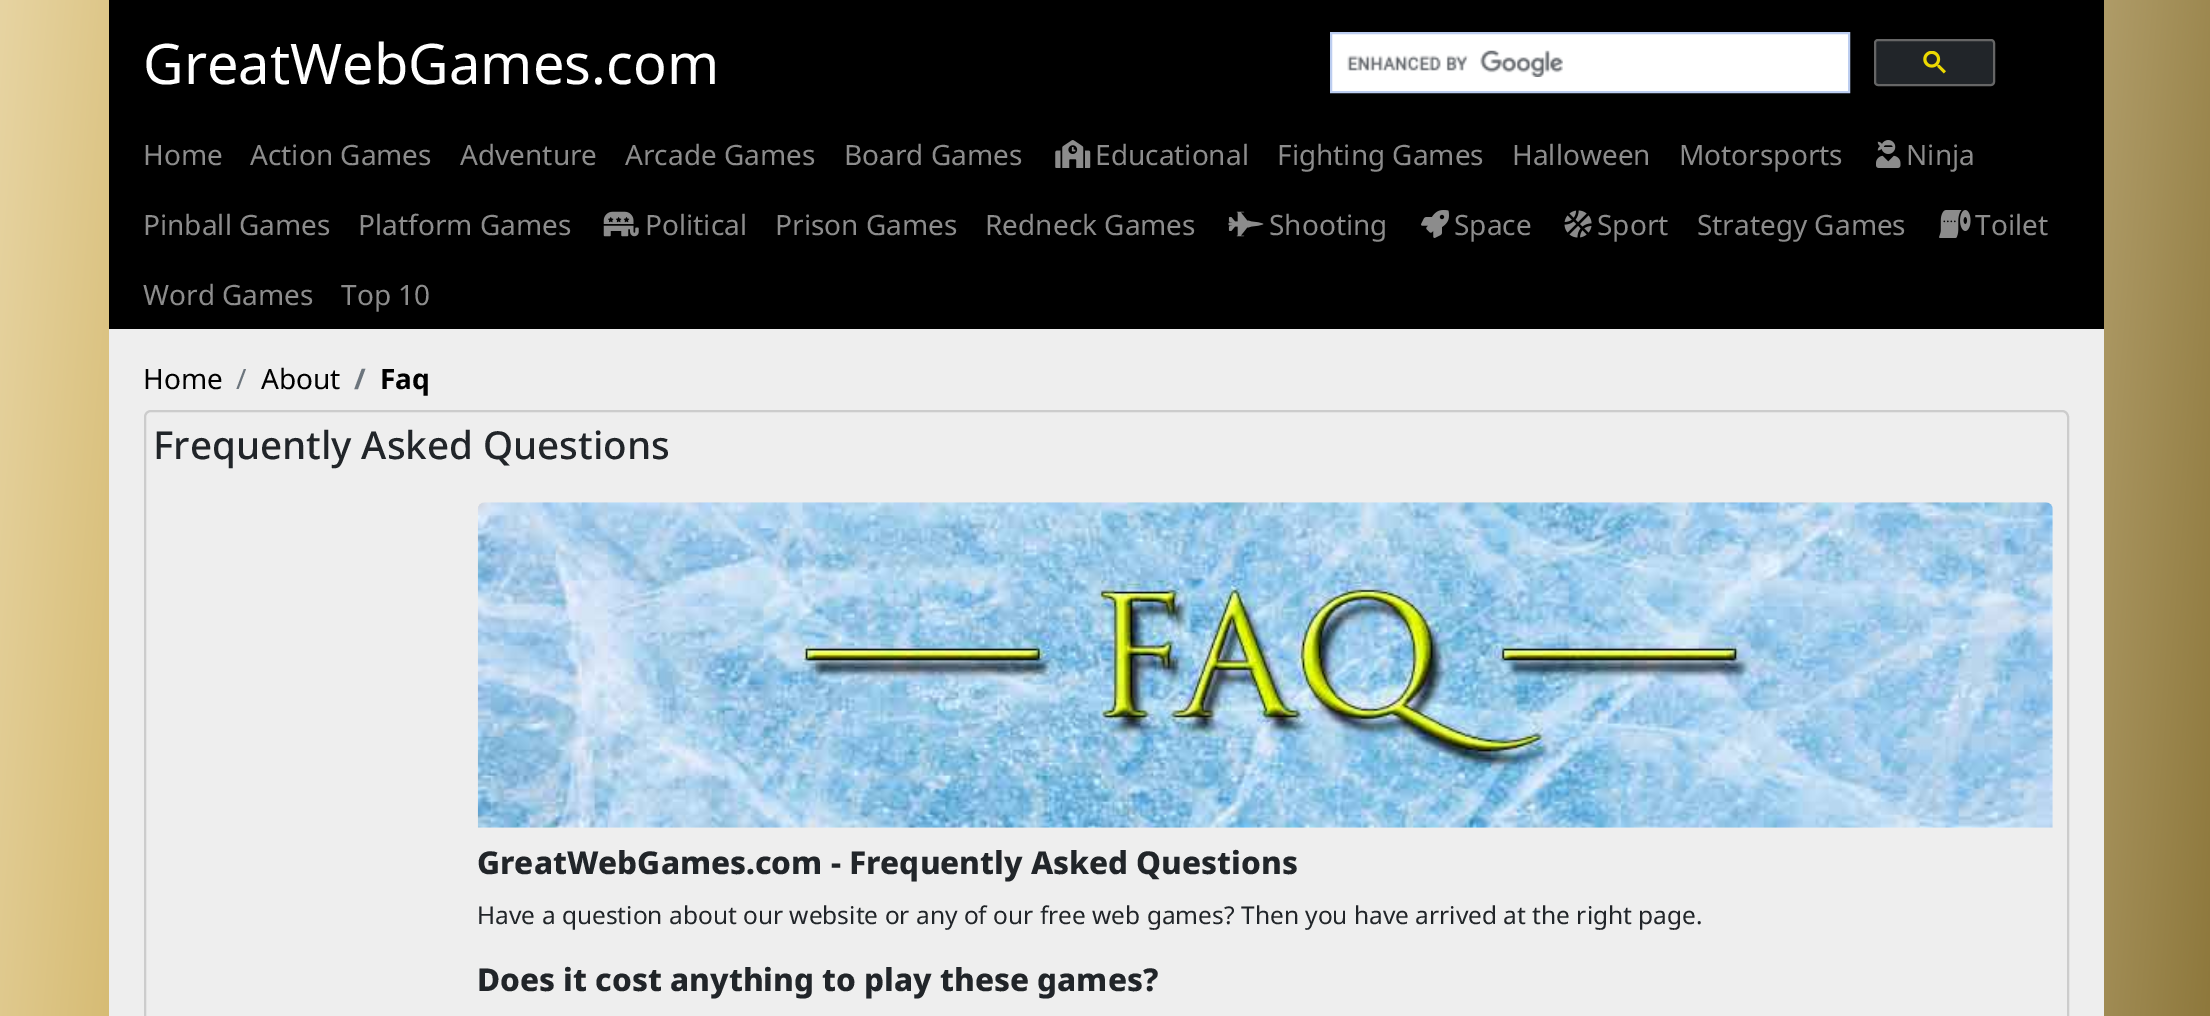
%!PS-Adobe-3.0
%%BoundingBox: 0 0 2210 1016
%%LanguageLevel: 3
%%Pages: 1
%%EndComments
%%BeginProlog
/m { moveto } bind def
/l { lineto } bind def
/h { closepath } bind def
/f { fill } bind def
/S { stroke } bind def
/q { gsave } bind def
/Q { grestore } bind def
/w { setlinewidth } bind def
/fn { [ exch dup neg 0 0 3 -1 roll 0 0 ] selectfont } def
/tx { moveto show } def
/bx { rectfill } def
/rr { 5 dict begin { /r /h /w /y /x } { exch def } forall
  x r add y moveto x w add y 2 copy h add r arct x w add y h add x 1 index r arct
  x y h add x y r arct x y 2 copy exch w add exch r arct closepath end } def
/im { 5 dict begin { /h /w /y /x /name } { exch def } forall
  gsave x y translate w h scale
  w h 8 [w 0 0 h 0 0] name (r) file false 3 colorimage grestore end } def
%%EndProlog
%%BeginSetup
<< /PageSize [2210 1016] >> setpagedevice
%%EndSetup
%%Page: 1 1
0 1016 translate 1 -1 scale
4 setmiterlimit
1 setgray
0 0 2210 1016 bx
q 0 0 m 2210 0 l 2210 1016 l 0 1016 l h clip newpath
<< /ShadingType 2 /ColorSpace /DeviceRGB /Coords [-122 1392 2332 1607] /Extend [true true] /Function << /FunctionType 3 /Domain [0 1] /Functions [<< /FunctionType 2 /Domain [0 1] /C0 [0.906 0.831 0.635] /C1 [0.745 0.596 0.192] /N 1 >> << /FunctionType 2 /Domain [0 1] /C0 [0.745 0.596 0.192] /C1 [0.906 0.831 0.635] /N 1 >> << /FunctionType 2 /Domain [0 1] /C0 [0.906 0.831 0.635] /C1 [0.902 0.847 0.698] /N 1 >> << /FunctionType 2 /Domain [0 1] /C0 [0.902 0.847 0.698] /C1 [0.475 0.38 0.125] /N 1 >> << /FunctionType 2 /Domain [0 1] /C0 [0.475 0.38 0.125] /C1 [0.475 0.38 0.125] /N 1 >>] /Bounds [0.2 0.69 0.72 0.98] /Encode [0 1 0 1 0 1 0 1 0 1] >> >> shfill Q
0 setgray
109 0 1995 329 bx
/NotoSans-Regular 56 fn
1 setgray
(GreatWebGames.com) 143 84 tx
1331 33 m 1849 33 l 1849 92 l 1331 92 l h q f Q
0.737 0.804 0.941 setrgbcolor
2 w
S
(image0.raw) 1347 50 216 27 im
0.129 0.145 0.161 setrgbcolor
1875 40 119 45 3 rr q f Q
0.4 setgray
S
(image1.raw) 1923 51 23 23 im
/NotoSans-Regular 28 fn
0.549 setgray
(Home) 143 165 tx
(Action Games) 250 165 tx
(Adventure) 460 165 tx
(Arcade Games) 625 165 tx
(Board Games) 844 165 tx
(image2.raw) 1055 140 36 28 im
(Educational) 1095 165 tx
(Fighting Games) 1277 165 tx
(Halloween) 1512 165 tx
(Motorsports) 1679 165 tx
(image3.raw) 1876 140 25 28 im
(Ninja) 1906 165 tx
(Pinball Games) 143 235 tx
(Platform Games) 358 235 tx
(image4.raw) 603 211 36 26 im
(Political) 645 235 tx
(Prison Games) 775 235 tx
(Redneck Games) 985 235 tx
(image5.raw) 1228 211 36 26 im
(Shooting) 1269 235 tx
(image6.raw) 1421 210 28 28 im
(Space) 1454 235 tx
(image7.raw) 1564 210 28 28 im
(Sport) 1597 235 tx
(Strategy Games) 1697 235 tx
(image8.raw) 1939 210 32 28 im
(Toilet) 1975 235 tx
(Word Games) 143 305 tx
(Top 10) 341 305 tx
0.933 setgray
109 329 1995 687 bx
0 setgray
(Home) 143 389 tx
0.424 0.459 0.49 setrgbcolor
(/) 236 389 tx
0 setgray
(About) 261 389 tx
/NotoSans-Bold 28 fn
0.424 0.459 0.49 setrgbcolor
(/) 354 389 tx
0 setgray
(Faq) 380 389 tx
0.8 setgray
145 411 1923 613 6 rr S
/NotoSans-Medium 38.5 fn
0.129 0.145 0.161 setrgbcolor
(Frequently Asked Questions) 153 459 tx
(image9.raw) 477 502 1576 326 im
/NotoSans-ExtraBold 31.5 fn
(GreatWebGames.com - Frequently Asked Questions) 477 874 tx
/NotoSans-Regular 24.5 fn
(Have a question about our website or any of our free web games? Then you have arrived at the right page.) 477 924 tx
/NotoSans-ExtraBold 31.5 fn
(Does it cost anything to play these games?) 477 991 tx
showpage
%%EOF
